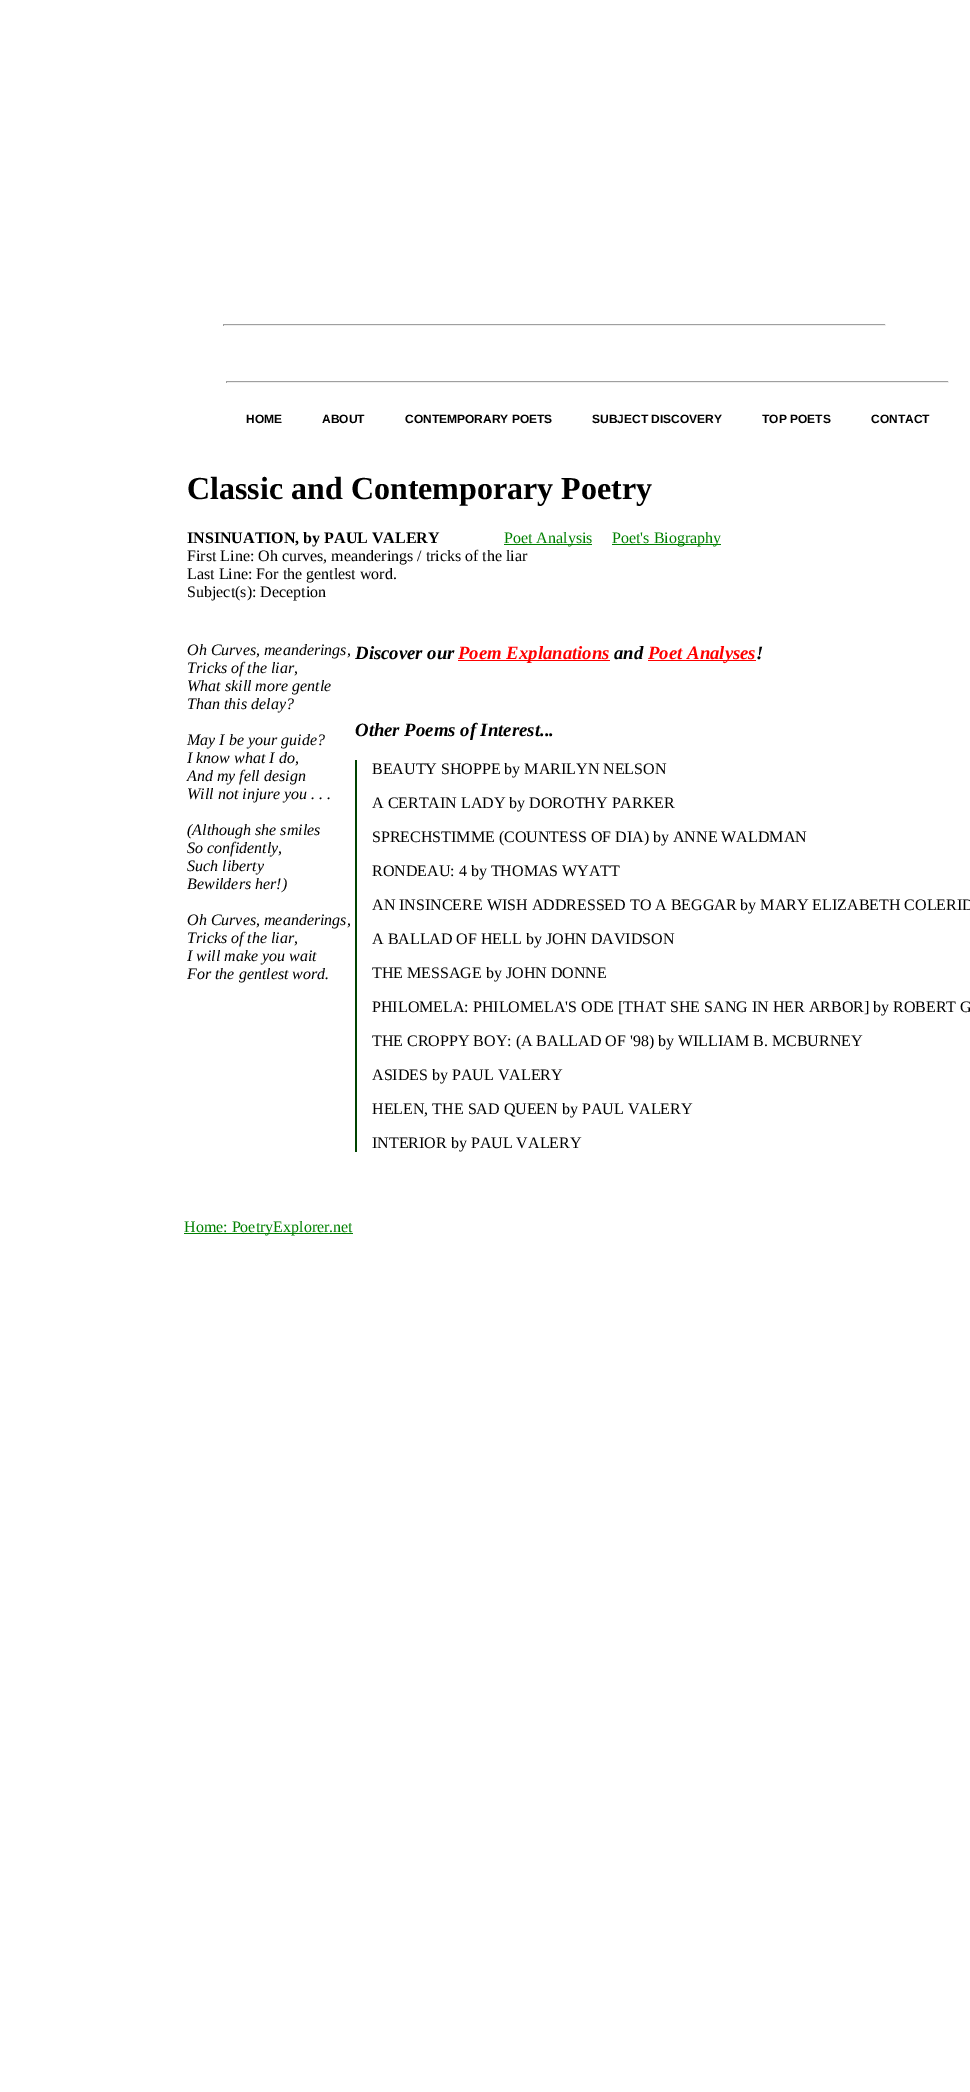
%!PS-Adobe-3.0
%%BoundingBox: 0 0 970 2092
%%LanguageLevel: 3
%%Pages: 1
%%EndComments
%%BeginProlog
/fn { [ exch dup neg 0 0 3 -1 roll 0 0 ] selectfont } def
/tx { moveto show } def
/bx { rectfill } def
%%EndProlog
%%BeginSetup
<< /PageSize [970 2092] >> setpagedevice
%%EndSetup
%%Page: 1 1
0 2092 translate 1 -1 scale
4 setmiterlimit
1 setgray
0 0 970 2092 bx
0.624 setgray
223 324 663 1 bx
0.933 setgray
885 324 1 2 bx
223 325 663 1 bx
0.624 setgray
223 324 1 2 bx
226 381 723 1 bx
0.933 setgray
948 381 1 2 bx
226 382 723 1 bx
0.624 setgray
226 381 1 2 bx
/LiberationSans-Bold 12 fn
0 setgray
(HOME) 246 423 tx
(ABOUT) 322 423 tx
(CONTEMPORARY POETS) 405 423 tx
(SUBJECT DISCOVERY) 592 423 tx
(TOP POETS) 762 423 tx
(CONTACT) 871 423 tx
/LiberationSerif-Bold 32 fn
(Classic and Contemporary Poetry) 187 499 tx
/LiberationSerif-Bold 16 fn
(INSINUATION, by PAUL VALERY) 187 543 tx
0 0.502 0 setrgbcolor
504 544 88 1 bx
/LiberationSerif-Regular 16 fn
(Poet Analysis) 504 543 tx
612 544 109 1 bx
(Poet's Biography) 612 543 tx
0 setgray
(First Line: Oh curves, meanderings / tricks of the liar) 187 561 tx
(Last Line: For the gentlest word.) 187 579 tx
(Subject\(s\): Deception) 187 597 tx
/LiberationSerif-Italic 16 fn
(Oh Curves, meanderings,) 187 655 tx
(Tricks of the liar,) 187 673 tx
(What skill more gentle) 187 691 tx
(Than this delay?) 187 709 tx
(May I be your guide?) 187 745 tx
(I know what I do,) 187 763 tx
(And my fell design) 187 781 tx
(Will not injure you . . .) 187 799 tx
(\(Although she smiles) 187 835 tx
(So confidently,) 187 853 tx
(Such liberty) 187 871 tx
(Bewilders her!\)) 187 889 tx
(Oh Curves, meanderings,) 187 925 tx
(Tricks of the liar,) 187 943 tx
(I will make you wait) 187 961 tx
(For the gentlest word.) 187 979 tx
/LiberationSerif-BoldItalic 18.75 fn
(Discover our) 355 659 tx
1 0 0 setrgbcolor
458 660 152 1 bx
(Poem Explanations) 458 659 tx
0 setgray
(and) 614 659 tx
1 0 0 setrgbcolor
648 660 108 1 bx
(Poet Analyses) 648 659 tx
0 setgray
(!) 756 659 tx
(Other Poems of Interest...) 355 736 tx
0 0.267 0 setrgbcolor
355 760 2 392 bx
/LiberationSerif-Regular 16 fn
0 setgray
(BEAUTY SHOPPE by MARILYN NELSON) 372 774 tx
(A CERTAIN LADY by DOROTHY PARKER) 372 808 tx
(SPRECHSTIMME \(COUNTESS OF DIA\) by ANNE WALDMAN) 372 842 tx
(RONDEAU: 4 by THOMAS WYATT) 372 876 tx
(AN INSINCERE WISH ADDRESSED TO A BEGGAR by MARY ELIZABETH COLERID) 372 910 tx
(A BALLAD OF HELL by JOHN DAVIDSON) 372 944 tx
(THE MESSAGE by JOHN DONNE) 372 978 tx
(PHILOMELA: PHILOMELA'S ODE [THAT SHE SANG IN HER ARBOR] by ROBERT G) 372 1012 tx
(THE CROPPY BOY: \(A BALLAD OF '98\) by WILLIAM B. MCBURNEY) 372 1046 tx
(ASIDES by PAUL VALERY) 372 1080 tx
(HELEN, THE SAD QUEEN by PAUL VALERY) 372 1114 tx
(INTERIOR by PAUL VALERY) 372 1148 tx
0 0.502 0 setrgbcolor
184 1233 169 1 bx
(Home: PoetryExplorer.net) 184 1232 tx
showpage
%%EOF
